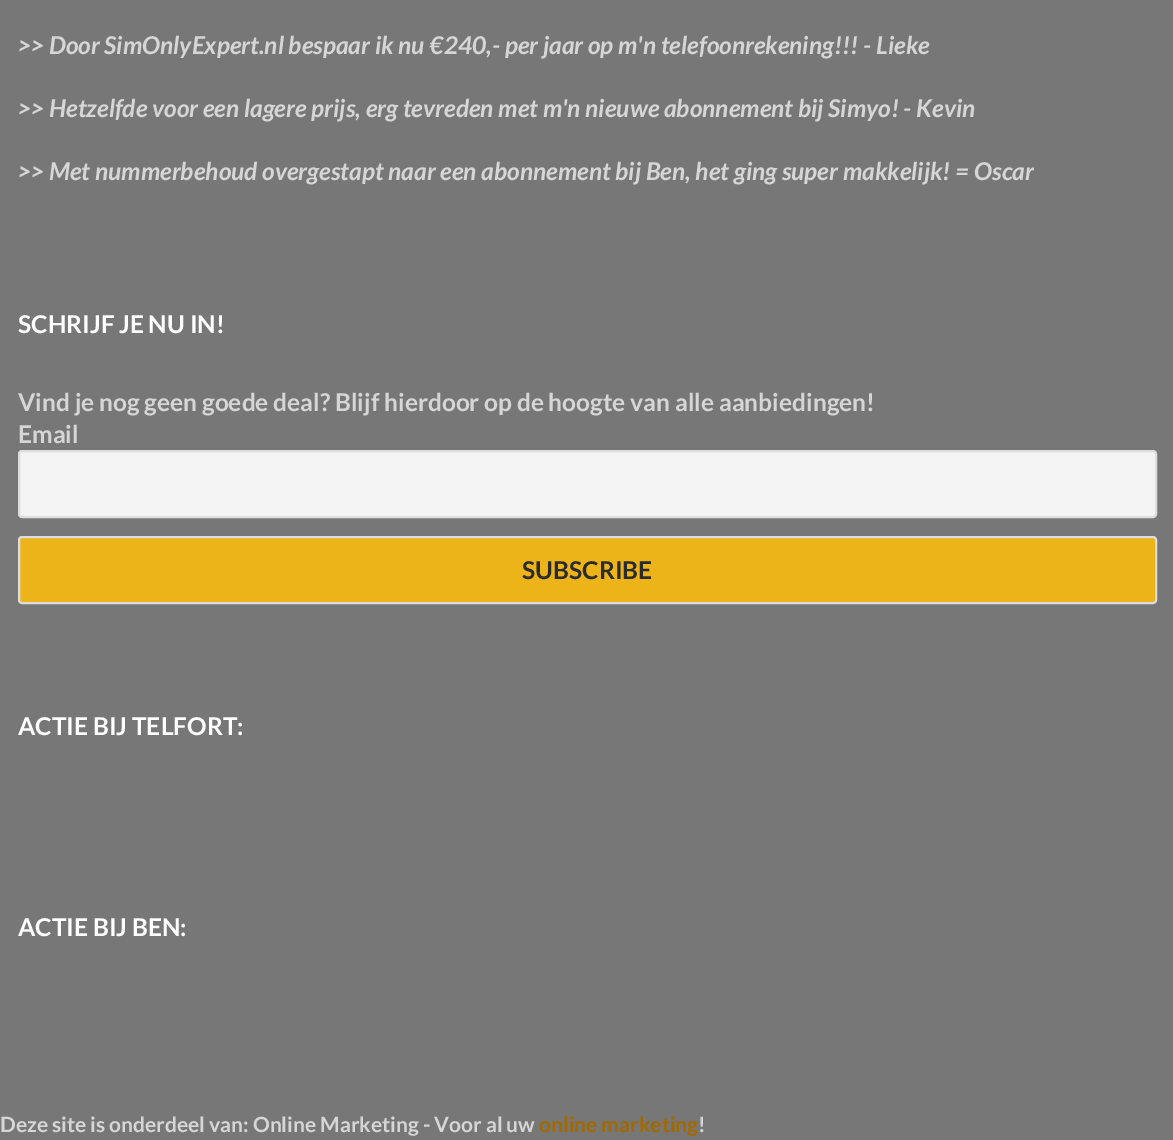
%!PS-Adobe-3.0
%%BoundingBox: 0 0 1173 1140
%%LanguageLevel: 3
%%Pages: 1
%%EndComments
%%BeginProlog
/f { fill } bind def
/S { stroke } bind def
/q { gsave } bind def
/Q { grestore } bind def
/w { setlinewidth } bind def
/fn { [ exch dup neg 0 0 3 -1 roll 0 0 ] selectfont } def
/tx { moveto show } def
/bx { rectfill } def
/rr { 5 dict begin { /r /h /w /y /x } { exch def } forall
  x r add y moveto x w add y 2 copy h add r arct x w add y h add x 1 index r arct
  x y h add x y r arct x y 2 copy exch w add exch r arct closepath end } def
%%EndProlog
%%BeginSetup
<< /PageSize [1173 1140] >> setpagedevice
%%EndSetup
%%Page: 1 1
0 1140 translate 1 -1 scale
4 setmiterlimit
0.467 setgray
0 0 1173 1140 bx
/Lato-BoldItalic 24.5 fn
0.839 setgray
(>> Door SimOnlyExpert.nl bespaar ik nu €240,- per jaar op m'n telefoonrekening!!! - Lieke) 18 54 tx
(>> Hetzelfde voor een lagere prijs, erg tevreden met m'n nieuwe abonnement bij Simyo! - Kevin) 18 117 tx
(>> Met nummerbehoud overgestapt naar een abonnement bij Ben, het ging super makkelijk! = Oscar) 18 180 tx
/Lato-Bold 24.5 fn
1 setgray
(SCHRIJF JE NU IN!) 18 333 tx
0.839 setgray
(Vind je nog geen goede deal? Blijf hierdoor op de hoogte van alle aanbiedingen!) 18 411 tx
(Email) 18 443 tx
0.957 setgray
19 451 1137 66 3 rr q f Q
0.867 setgray
2 w
S
0.929 0.706 0.102 setrgbcolor
19 537 1137 66 3 rr q f Q
0.867 setgray
S
0.169 setgray
(SUBSCRIBE) 522 579 tx
1 setgray
(ACTIE BIJ TELFORT:) 18 735 tx
(ACTIE BIJ BEN:) 18 936 tx
/Lato-Bold 21 fn
0.839 setgray
(Deze site is onderdeel van: Online Marketing - Voor al uw) 0 1132 tx
0.635 0.412 0 setrgbcolor
(online marketing) 539 1132 tx
0.839 setgray
(!) 698 1132 tx
showpage
%%EOF
